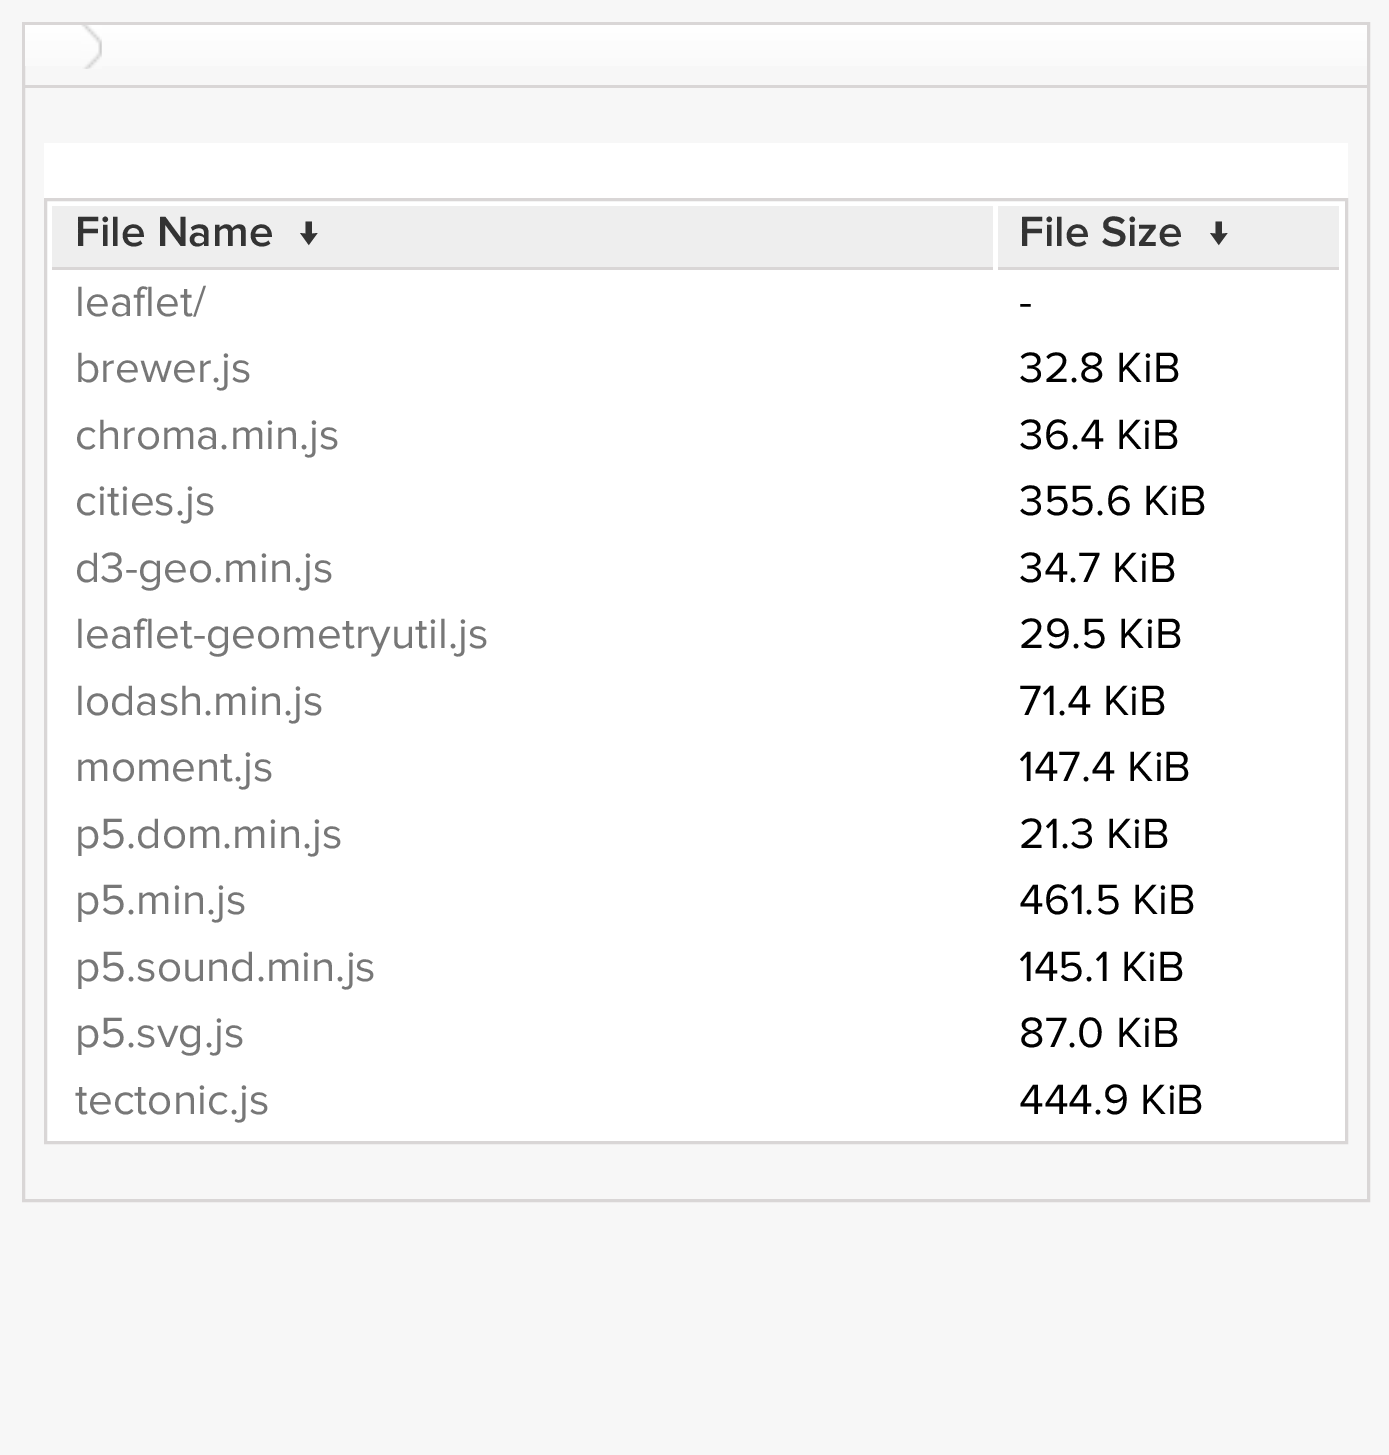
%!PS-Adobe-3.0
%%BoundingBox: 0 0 1389 1455
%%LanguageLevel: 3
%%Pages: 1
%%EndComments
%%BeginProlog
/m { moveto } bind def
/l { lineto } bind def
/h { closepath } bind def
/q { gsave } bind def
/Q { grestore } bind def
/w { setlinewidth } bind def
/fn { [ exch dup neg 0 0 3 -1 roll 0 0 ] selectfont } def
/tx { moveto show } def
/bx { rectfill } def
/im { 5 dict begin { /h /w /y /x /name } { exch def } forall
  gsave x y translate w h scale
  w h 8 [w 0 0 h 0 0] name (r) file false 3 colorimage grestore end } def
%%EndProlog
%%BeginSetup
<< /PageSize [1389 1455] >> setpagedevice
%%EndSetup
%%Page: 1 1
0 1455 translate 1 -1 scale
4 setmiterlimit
0.969 setgray
0 0 1389 1455 bx
0.851 0.839 0.839 setrgbcolor
3 w
23.5 23.5 1345 1177 rectstroke
q 25 25 m 1367 25 l 1367 66 l 25 66 l h clip newpath
<< /ShadingType 2 /ColorSpace /DeviceRGB /Coords [696 25 696 85] /Extend [true true] /Function << /FunctionType 2 /Domain [0 1] /C0 [1 1 1] /C1 [0.969 0.969 0.969] /N 1 >> >> shfill Q
25 85 1342 3 bx
(image0.raw) 81 25 21 44 im
1 setgray
44 143 1304 998 bx
0.851 0.839 0.839 setrgbcolor
45.5 199.5 1301 943 rectstroke
0.933 setgray
52 206 941 61 bx
0.851 0.839 0.839 setrgbcolor
52 267 941 3 bx
/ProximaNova-SemiBold 44 fn
0.2 setgray
(File Name) 75 246 tx
(↓) 296 246 tx
0.933 setgray
998 206 341 61 bx
0.851 0.839 0.839 setrgbcolor
998 267 341 3 bx
0.2 setgray
(File Size) 1019 246 tx
(↓) 1206 246 tx
/ProximaNova-Regular 44 fn
0.467 setgray
(leaflet/) 75 316 tx
0 setgray
(-) 1019 316 tx
0.467 setgray
(brewer.js) 75 382 tx
0 setgray
(32.8 KiB) 1019 382 tx
0.467 setgray
(chroma.min.js) 75 449 tx
0 setgray
(36.4 KiB) 1019 449 tx
0.467 setgray
(cities.js) 75 515 tx
0 setgray
(355.6 KiB) 1019 515 tx
0.467 setgray
(d3-geo.min.js) 75 582 tx
0 setgray
(34.7 KiB) 1019 582 tx
0.467 setgray
(leaflet-geometryutil.js) 75 648 tx
0 setgray
(29.5 KiB) 1019 648 tx
0.467 setgray
(lodash.min.js) 75 715 tx
0 setgray
(71.4 KiB) 1019 715 tx
0.467 setgray
(moment.js) 75 781 tx
0 setgray
(147.4 KiB) 1019 781 tx
0.467 setgray
(p5.dom.min.js) 75 848 tx
0 setgray
(21.3 KiB) 1019 848 tx
0.467 setgray
(p5.min.js) 75 914 tx
0 setgray
(461.5 KiB) 1019 914 tx
0.467 setgray
(p5.sound.min.js) 75 981 tx
0 setgray
(145.1 KiB) 1019 981 tx
0.467 setgray
(p5.svg.js) 75 1047 tx
0 setgray
(87.0 KiB) 1019 1047 tx
0.467 setgray
(tectonic.js) 75 1114 tx
0 setgray
(444.9 KiB) 1019 1114 tx
showpage
%%EOF
